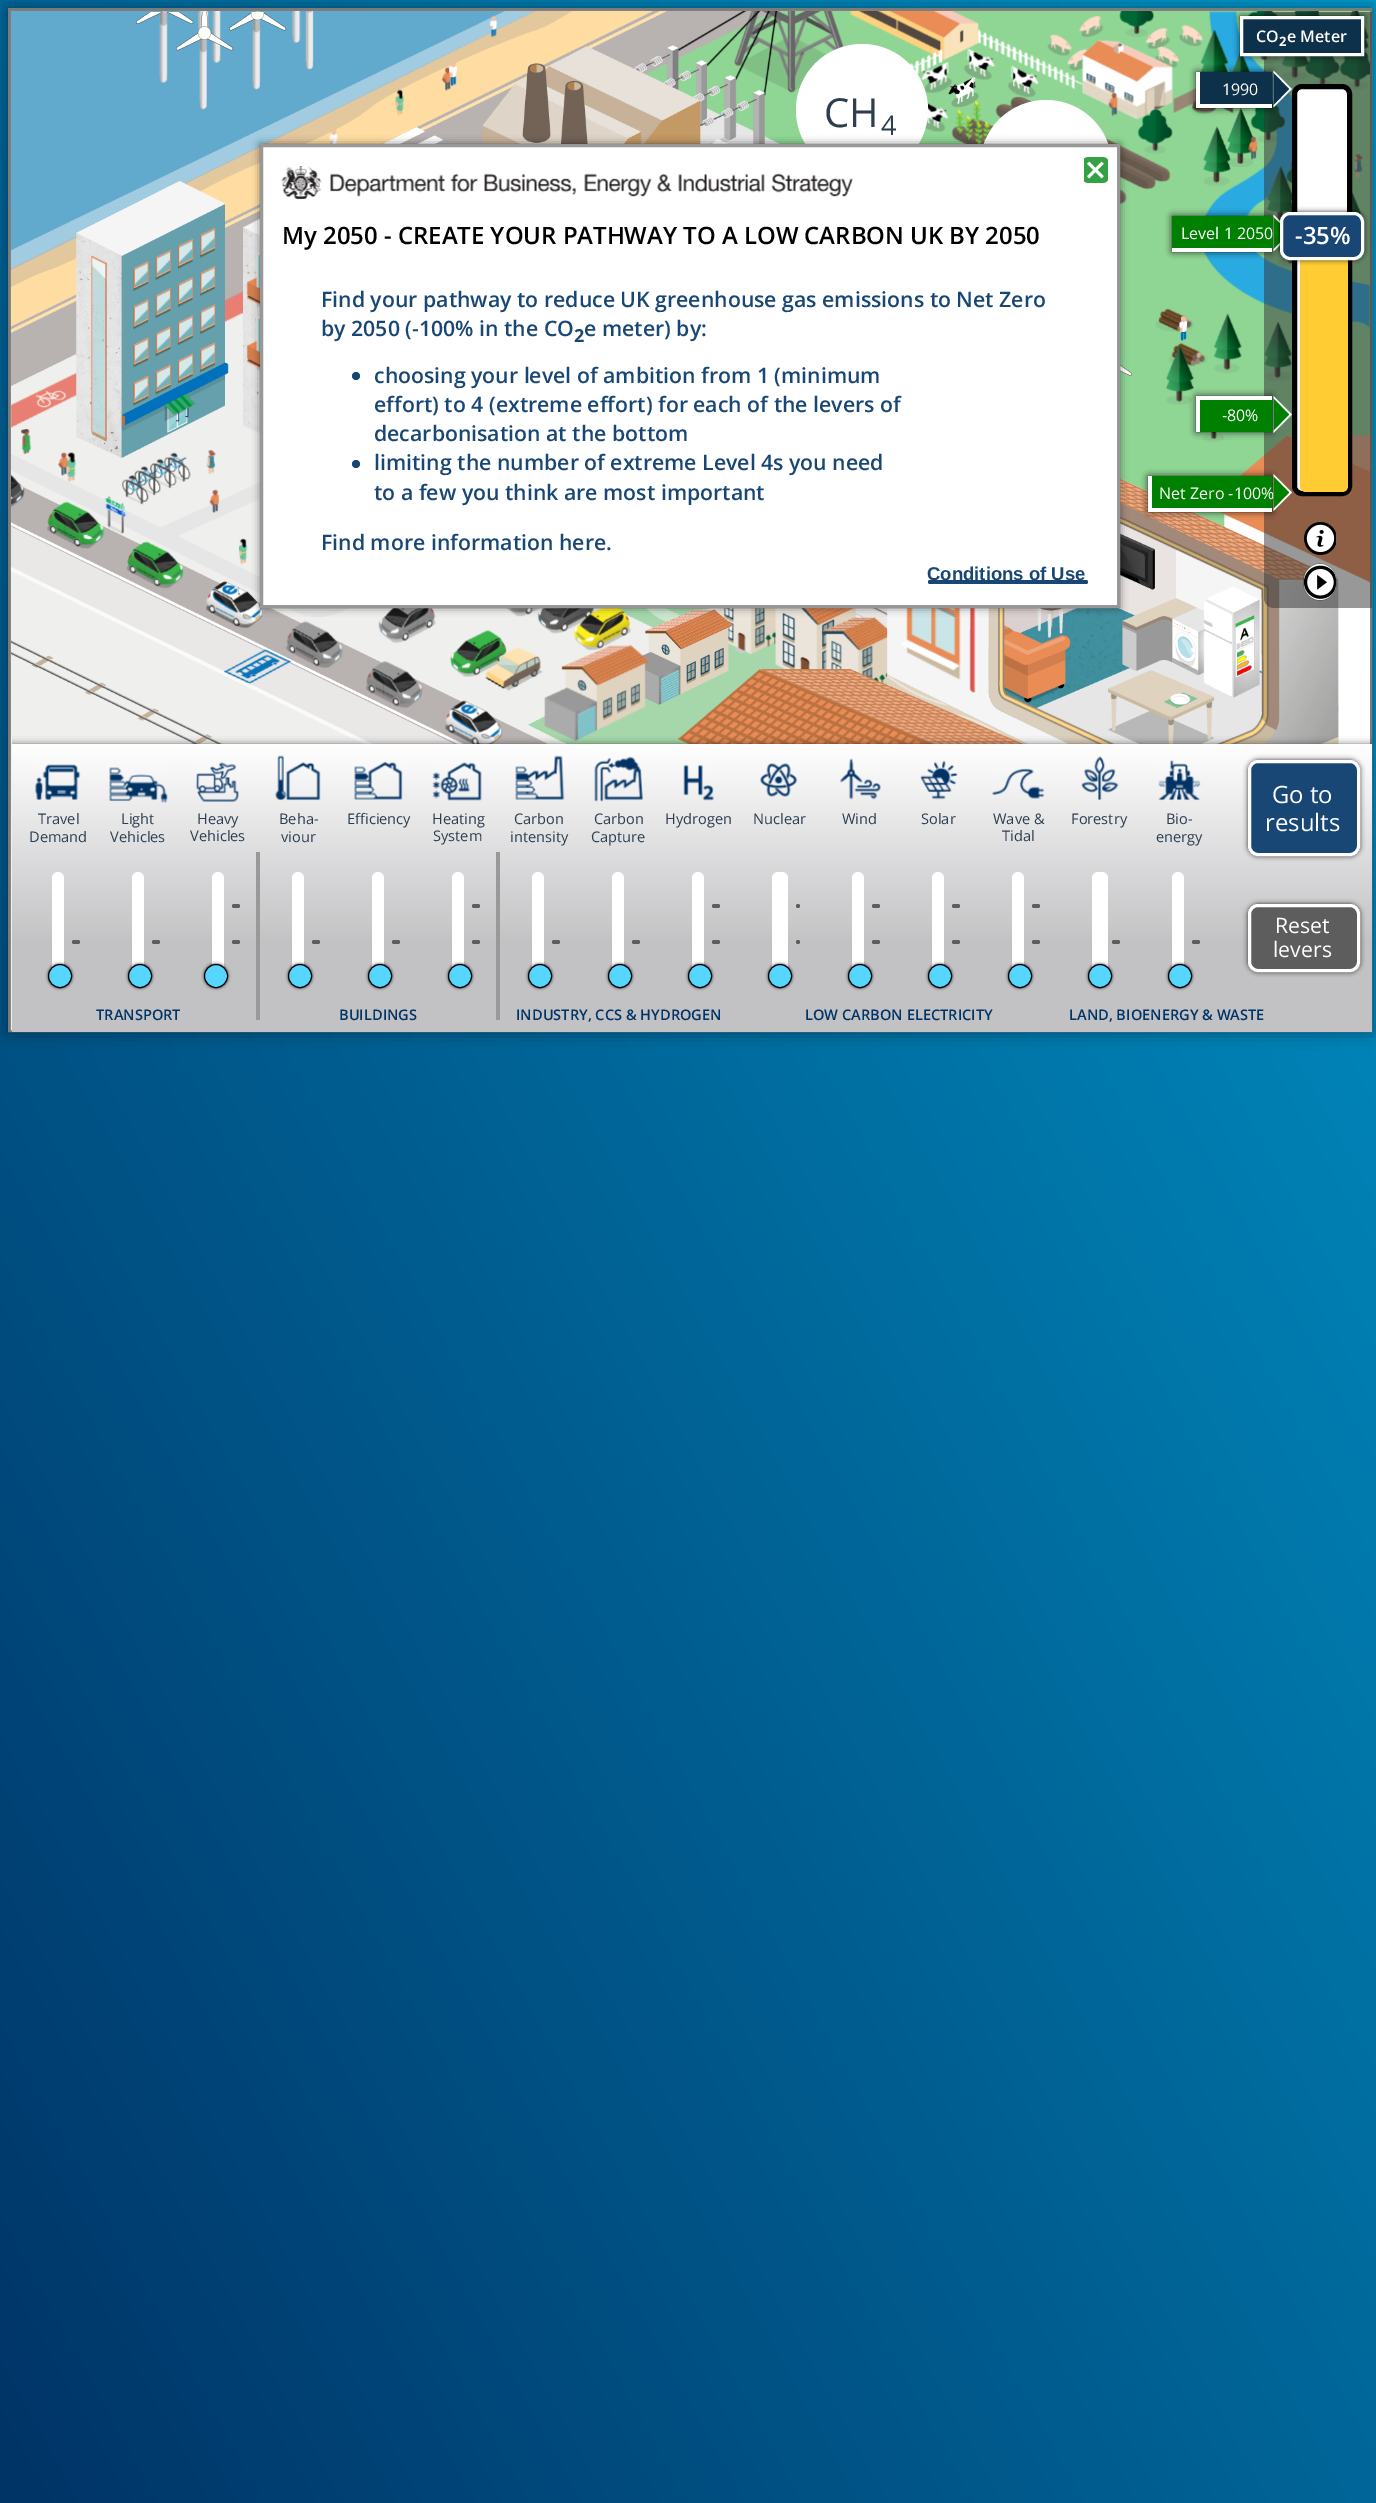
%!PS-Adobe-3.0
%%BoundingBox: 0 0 1376 2503
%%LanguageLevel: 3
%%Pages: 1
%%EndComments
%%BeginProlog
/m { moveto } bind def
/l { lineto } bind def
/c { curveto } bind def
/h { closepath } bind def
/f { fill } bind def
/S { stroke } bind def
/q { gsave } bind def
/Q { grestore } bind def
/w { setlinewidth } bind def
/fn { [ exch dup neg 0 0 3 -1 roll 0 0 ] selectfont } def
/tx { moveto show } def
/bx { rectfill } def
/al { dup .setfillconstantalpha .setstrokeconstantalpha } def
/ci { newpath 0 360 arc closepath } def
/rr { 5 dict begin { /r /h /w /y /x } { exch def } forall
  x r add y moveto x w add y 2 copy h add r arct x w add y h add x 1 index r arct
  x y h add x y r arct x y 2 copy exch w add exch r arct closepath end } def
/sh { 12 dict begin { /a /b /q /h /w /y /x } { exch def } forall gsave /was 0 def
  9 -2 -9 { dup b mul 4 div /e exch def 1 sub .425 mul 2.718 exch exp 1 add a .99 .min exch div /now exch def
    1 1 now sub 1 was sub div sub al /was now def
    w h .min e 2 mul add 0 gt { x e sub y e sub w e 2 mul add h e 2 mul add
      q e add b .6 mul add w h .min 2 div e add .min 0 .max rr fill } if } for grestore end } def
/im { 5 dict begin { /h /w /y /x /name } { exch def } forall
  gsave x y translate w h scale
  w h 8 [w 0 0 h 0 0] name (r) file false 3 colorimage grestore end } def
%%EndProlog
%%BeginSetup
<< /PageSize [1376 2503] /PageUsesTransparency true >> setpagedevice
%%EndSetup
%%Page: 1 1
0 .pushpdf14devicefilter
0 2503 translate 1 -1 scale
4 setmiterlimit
1 setgray
0 0 1376 2503 bx
q 0 0 m 1376 0 l 1376 2503 l 0 2503 l h clip newpath
<< /ShadingType 2 /ColorSpace /DeviceRGB /Coords [-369 1833 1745 671] /Extend [true true] /Function << /FunctionType 2 /Domain [0 1] /C0 [0 0.2 0.4] /C1 [0 0.6 0.8] /N 1 >> >> shfill Q
0 setgray
8 8 1364 1024 0 8 0.4 sh
0.482 setgray
3 w
9.5 9.5 1361 1021 rectstroke
(image0.raw) 10 10 1361 1021 im
(image1.raw) 159 11 9 72 im
(image2.raw) 136 12 58 12 im
(image3.raw) 198 11 11 99 im
(image5.raw) 212 11 9 52 im
(image6.raw) 252 11 9 79 im
(image7.raw) 229 12 58 19 im
(image4.raw) 175 12 59 39 im
(image8.raw) 292 11 9 32 im
(image9.raw) 305 11 9 59 im
(image10.raw) 678 11 167 85 im
(image13.raw) 1204 11 166 317 im
(image15.raw) 1079 16 25 22 im
(image16.raw) 1145 27 25 22 im
(image17.raw) 1179 24 25 23 im
(image25.raw) 1067 48 22 23 im
(image24.raw) 1047 34 25 22 im
(image26.raw) 1155 46 25 22 im
(image27.raw) 1200 29 29 43 im
(image36.raw) 1231 51 20 60 im
(image21.raw) 976 29 258 91 im
(image11.raw) 850 11 129 64 im
(image12.raw) 1119 11 36 26 im
(image14.raw) 489 15 9 23 im
(image18.raw) 1247 11 32 53 im
(image19.raw) 1294 11 27 5 im
(image20.raw) 1341 11 28 51 im
(image31.raw) 667 51 1 5 im
(image22.raw) 482 45 298 99 im
(image23.raw) 963 48 32 33 im
(image28.raw) 395 89 10 27 im
(image29.raw) 441 67 11 24 im
(image30.raw) 449 61 9 26 im
(image32.raw) 921 62 31 31 im
(image40.raw) 995 96 176 94 im
(image42.raw) 951 100 176 104 im
(image43.raw) 925 102 24 30 im
(image33.raw) 948 77 31 31 im
(image34.raw) 1007 65 32 33 im
(image35.raw) 1108 92 11 24 im
(image39.raw) 1339 51 31 39 im
(image38.raw) 1304 56 36 28 im
(image37.raw) 1281 56 29 26 im
1 setgray
862 110 66 ci f
/OpenSans-Regular 40 fn
0.173 0.243 0.314 setrgbcolor
(CH) 824 127 tx
/OpenSans-Regular 27 fn
(4) 881 135 tx
(image41.raw) 1250 99 36 44 im
1 setgray
1046 166 66 ci f
(image44.raw) 1137 108 36 46 im
(image45.raw) 1191 100 26 14 im
(image48.raw) 1203 126 29 60 im
(image46.raw) 1227 108 28 59 im
(image47.raw) 329 129 9 15 im
(image49.raw) 1247 136 11 24 im
(image50.raw) 1286 161 6 23 im
(image51.raw) 1354 153 9 26 im
(image58.raw) 11 291 232 137 im
(image52.raw) 76 180 153 278 im
(image53.raw) 1266 165 26 60 im
(image54.raw) 1352 191 12 30 im
(image55.raw) 243 218 17 216 im
(image56.raw) 1277 208 15 60 im
(image57.raw) 1352 259 5 7 im
(image59.raw) 1155 308 39 24 im
(image60.raw) 1213 313 29 61 im
(image61.raw) 1179 316 8 25 im
(image62.raw) 1264 321 28 61 im
(image63.raw) 1168 343 40 24 im
(image64.raw) 1120 365 12 11 im
(image65.raw) 1166 345 28 60 im
(image66.raw) 11 474 14 34 im
(image67.raw) 21 429 11 26 im
(image69.raw) 65 452 12 31 im
(image68.raw) 58 452 11 24 im
(image75.raw) 103 496 24 39 im
(image70.raw) 122 452 69 53 im
(image71.raw) 206 450 10 25 im
(image72.raw) 1202 432 23 10 im
(image73.raw) 1218 435 152 309 im
(image74.raw) 47 501 58 48 im
(image76.raw) 209 489 11 25 im
(image91.raw) 855 608 33 23 im
(image85.raw) 506 608 35 9 im
(image86.raw) 537 608 58 26 im
(image88.raw) 617 608 96 20 im
(image87.raw) 573 608 58 43 im
(image101.raw) 449 630 58 47 im
(image102.raw) 485 648 58 43 im
(image96.raw) 528 617 360 127 im
(image89.raw) 718 608 59 47 im
(image90.raw) 775 608 82 62 im
(image104.raw) 821 617 67 68 im
(image77.raw) 887 478 452 266 im
(image80.raw) 126 541 58 48 im
(image81.raw) 239 538 9 27 im
(image82.raw) 206 581 57 47 im
(image83.raw) 206 581 58 48 im
(image84.raw) 378 608 58 35 im
(image97.raw) 11 640 213 104 im
(image99.raw) 285 621 58 47 im
(image100.raw) 366 661 57 47 im
(image107.raw) 445 700 58 44 im
(image105.raw) 444 700 59 44 im
(image78.raw) 10 526 445 218 im
(image95.raw) 1235 615 20 63 im
(image79.raw) 998 516 271 228 im
(image92.raw) 901 608 60 72 im
(image93.raw) 968 608 9 86 im
(image94.raw) 641 609 92 96 im
(image98.raw) 224 649 68 36 im
(image103.raw) 544 644 106 98 im
(image106.raw) 678 669 346 75 im
0.5 al
0.196 setgray
1264 12 m 1372 12 l 1372 608 l 1274 608 l 1268.5 608 1264 603.5 1264 598 c h f
q
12 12 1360 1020 rectclip
1 al
0 setgray
1240 16 124 40 0 3.5 0.75 sh
Q
1 al
0.055 0.192 0.294 setrgbcolor
1241.5 17.5 m 1362.5 17.5 l 1362.5 54.5 l 1241.5 54.5 l h q f Q
1 setgray
S
/OpenSans-SemiBold 16 fn
(CO) 1256 42 tx
/OpenSans-Bold 13 fn
(2) 1279 46 tx
/OpenSans-SemiBold 16 fn
(e Meter) 1287 42 tx
1294.5 86.5 55 407 7.5 rr q f Q
0 setgray
5 w
S
1196 72 76 36 0 3.5 0.75 sh
0.055 0.192 0.294 setrgbcolor
1200 72 72 32 bx
1 setgray
1196 104 76 4 bx
1196 72 4 36 bx
1273.5 107.5 m 1273.5 70.5 l 1292 89 l h f
/OpenSans-Regular 16 fn
(1990) 1222 95 tx
0.055 0.192 0.294 setrgbcolor
1273.5 105 m 1273.5 73 l 1289 89 l h f
0 setgray
1172 216 100 36 0 3.5 0.75 sh
0 0.502 0 setrgbcolor
1172 216 100 32 bx
1 setgray
1172 248 100 4 bx
1273.5 251.5 m 1273.5 214.5 l 1292 233 l h f
(Level 1 2050) 1181 239 tx
0 0.502 0 setrgbcolor
1273.5 249 m 1273.5 217 l 1289 233 l h f
1 0.8 0.2 setrgbcolor
1300 232 m 1348 232 l 1348 486 l 1348 489.5 1345.5 492 1342 492 c 1306 492 l 1302.5 492 1300 489.5 1300 486 c h f
0 setgray
1280 212 84 48 10 2.5 0.75 sh
0.098 0.278 0.459 setrgbcolor
1281.5 213.5 81 45 8.5 rr q f Q
1 setgray
3 w
S
/OpenSans-SemiBold 23.9 fn
(-35%) 1295 244 tx
0 setgray
1196 396 76 36 0 3.5 0.75 sh
0 0.502 0 setrgbcolor
1200 400 72 32 bx
1 setgray
1196 396 76 4 bx
1196 396 4 36 bx
1273.5 433 m 1273.5 396 l 1292 414.5 l h f
/OpenSans-Regular 16 fn
(-80%) 1222 421 tx
0 0.502 0 setrgbcolor
1273.5 430.5 m 1273.5 398.5 l 1289 414.5 l h f
0 setgray
1148 476 124 36 0 3.5 0.75 sh
0 0.502 0 setrgbcolor
1152 476 120 32 bx
1 setgray
1148 508 124 4 bx
1148 476 4 36 bx
1273.5 511 m 1273.5 474 l 1292 492.5 l h f
(Net Zero -100%) 1159 499 tx
0 0.502 0 setrgbcolor
1273.5 508.5 m 1273.5 476.5 l 1289 492.5 l h f
0 setgray
260 144 860 464 0 4 0.5 sh
1 setgray
261.5 145.5 m 1118.5 145.5 l 1118.5 606.5 l 261.5 606.5 l h q f Q
0.596 setgray
S
(image108.raw) 1084 157 24 26 im
(image109.raw) 281 166 572 34 im
/OpenSans-SemiBold 23.9 fn
0 setgray
(My 2050 - CREATE YOUR PATHWAY TO A LOW CARBON UK BY 2050) 282 244 tx
/OpenSans-SemiBold 21.25 fn
0.098 0.278 0.459 setrgbcolor
(Find your pathway to reduce UK greenhouse gas emissions to Net Zero) 321 307 tx
(by 2050 \(-100% in the CO) 321 336 tx
/OpenSans-Bold 18 fn
(2) 574 342 tx
/OpenSans-SemiBold 21.25 fn
(e meter\) by:) 584 336 tx
356 376 4 ci f
(choosing your level of ambition from 1 \(minimum) 374 383 tx
(effort\) to 4 \(extreme effort\) for each of the levers of) 374 412 tx
(decarbonisation at the bottom) 374 441 tx
356 464 4 ci f
(limiting the number of extreme Level 4s you need) 374 470 tx
(to a few you think are most important) 374 500 tx
(Find more information here.) 321 550 tx
928 580 160 4 2 rr f
/LiberationSans-Bold 18.5 fn
(Conditions of Use) 927 580 tx
(image110.raw) 1304 522 32 33 im
0 setgray
1304 564 32 36 16 0.5 0.75 sh
1 setgray
1304 564 32 36 16 rr f
(image111.raw) 1304 565 32 34 im
q
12 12 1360 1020 rectclip
0 setgray
12 744 1360 288 0 3.5 0.5 sh
Q
q 12 744 m 1372 744 l 1372 1032 l 12 1032 l h clip newpath
<< /ShadingType 2 /ColorSpace /DeviceRGB /Coords [691 744 691 1030] /Extend [true true] /Function << /FunctionType 3 /Domain [0 1] /Functions [<< /FunctionType 2 /Domain [0 1] /C0 [1 1 1] /C1 [0.761 0.761 0.769] /N 1 >> << /FunctionType 2 /Domain [0 1] /C0 [0.761 0.761 0.769] /C1 [0.761 0.761 0.769] /N 1 >>] /Bounds [0.7] /Encode [0 1 0 1] >> >> shfill Q
(image112.raw) 35 764 46 37 im
/OpenSans-Regular 14.6 fn
0.173 0.243 0.314 setrgbcolor
(Travel) 38 824 tx
(Demand) 29 842 tx
1 setgray
52 872 12 104 6 rr f
q
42 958 m 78 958 l 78 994 l 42 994 l h 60 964 m 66.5 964 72 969.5 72 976 c 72 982.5 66.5 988 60 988 c 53.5 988 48 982.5 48 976 c 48 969.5 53.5 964 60 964 c h eoclip newpath
0 setgray
48 964 24 24 12 1.5 0.75 sh
Q
0.337 0.835 1 setrgbcolor
60 976 11.5 ci q f Q
0 setgray
1 w
S
0.365 setgray
72 940 8 4 2 rr f
(image113.raw) 109 767 59 36 im
0.173 0.243 0.314 setrgbcolor
(Light) 121 824 tx
(Vehicles) 110 842 tx
1 setgray
132 872 12 104 6 rr f
q
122 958 m 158 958 l 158 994 l 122 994 l h 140 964 m 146.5 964 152 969.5 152 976 c 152 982.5 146.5 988 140 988 c 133.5 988 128 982.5 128 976 c 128 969.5 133.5 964 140 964 c h eoclip newpath
0 setgray
128 964 24 24 12 1.5 0.75 sh
Q
0.337 0.835 1 setrgbcolor
140 976 11.5 ci q f Q
0 setgray
S
0.365 setgray
152 940 8 4 2 rr f
(image114.raw) 196 762 43 40 im
0.173 0.243 0.314 setrgbcolor
(Heavy) 197 824 tx
(Vehicles) 190 841 tx
1 setgray
212 872 12 104 6 rr f
q
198 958 m 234 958 l 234 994 l 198 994 l h 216 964 m 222.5 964 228 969.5 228 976 c 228 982.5 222.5 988 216 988 c 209.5 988 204 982.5 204 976 c 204 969.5 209.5 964 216 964 c h eoclip newpath
0 setgray
204 964 24 24 12 1.5 0.75 sh
Q
0.337 0.835 1 setrgbcolor
216 976 11.5 ci q f Q
0 setgray
S
0.365 setgray
232 904 8 4 2 rr f
232 940 8 4 2 rr f
/OpenSans-SemiBold 14.6 fn
0 0.2 0.4 setrgbcolor
(TRANSPORT) 96 1020 tx
(image115.raw) 275 755 46 46 im
/OpenSans-Regular 14.6 fn
0.173 0.243 0.314 setrgbcolor
(Beha-) 279 824 tx
(viour) 281 842 tx
1 setgray
292 872 12 104 6 rr f
0 setgray
288 964 24 24 12 1.5 0.75 sh
0.337 0.835 1 setrgbcolor
300 976 11.5 ci q f Q
0 setgray
S
0.365 setgray
312 940 8 4 2 rr f
(image116.raw) 354 761 49 39 im
0.173 0.243 0.314 setrgbcolor
(Efficiency) 347 824 tx
1 setgray
372 872 12 104 6 rr f
q
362 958 m 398 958 l 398 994 l 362 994 l h 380 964 m 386.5 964 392 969.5 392 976 c 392 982.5 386.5 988 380 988 c 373.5 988 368 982.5 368 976 c 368 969.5 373.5 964 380 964 c h eoclip newpath
0 setgray
368 964 24 24 12 1.5 0.75 sh
Q
0.337 0.835 1 setrgbcolor
380 976 11.5 ci q f Q
0 setgray
S
0.365 setgray
392 940 8 4 2 rr f
(image117.raw) 432 762 50 39 im
0.173 0.243 0.314 setrgbcolor
(Heating) 432 824 tx
(System) 433 841 tx
1 setgray
452 872 12 104 6 rr f
q
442 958 m 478 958 l 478 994 l 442 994 l h 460 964 m 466.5 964 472 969.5 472 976 c 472 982.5 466.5 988 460 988 c 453.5 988 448 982.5 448 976 c 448 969.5 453.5 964 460 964 c h eoclip newpath
0 setgray
448 964 24 24 12 1.5 0.75 sh
Q
0.337 0.835 1 setrgbcolor
460 976 11.5 ci q f Q
0 setgray
S
0.365 setgray
472 904 8 4 2 rr f
472 940 8 4 2 rr f
0.6 setgray
256 852 4 168 bx
/OpenSans-SemiBold 14.6 fn
0 0.2 0.4 setrgbcolor
(BUILDINGS) 339 1020 tx
(image118.raw) 515 755 50 45 im
/OpenSans-Regular 14.6 fn
0.173 0.243 0.314 setrgbcolor
(Carbon) 514 824 tx
(intensity) 510 842 tx
1 setgray
532 872 12 104 6 rr f
0 setgray
528 964 24 24 12 1.5 0.75 sh
0.337 0.835 1 setrgbcolor
540 976 11.5 ci q f Q
0 setgray
S
0.365 setgray
552 940 8 4 2 rr f
(image119.raw) 594 756 49 46 im
0.173 0.243 0.314 setrgbcolor
(Carbon) 594 824 tx
(Capture) 591 842 tx
1 setgray
612 872 12 104 6 rr f
0 setgray
608 964 24 24 12 1.5 0.75 sh
0.337 0.835 1 setrgbcolor
620 976 11.5 ci q f Q
0 setgray
S
0.365 setgray
632 940 8 4 2 rr f
(image120.raw) 683 764 31 37 im
0.173 0.243 0.314 setrgbcolor
(Hydrogen) 665 824 tx
1 setgray
692 872 12 104 6 rr f
q
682 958 m 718 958 l 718 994 l 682 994 l h 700 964 m 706.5 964 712 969.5 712 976 c 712 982.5 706.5 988 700 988 c 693.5 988 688 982.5 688 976 c 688 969.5 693.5 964 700 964 c h eoclip newpath
0 setgray
688 964 24 24 12 1.5 0.75 sh
Q
0.337 0.835 1 setrgbcolor
700 976 11.5 ci q f Q
0 setgray
S
0.365 setgray
712 904 8 4 2 rr f
712 940 8 4 2 rr f
0.6 setgray
496 852 4 168 bx
/OpenSans-SemiBold 14.6 fn
0 0.2 0.4 setrgbcolor
(INDUSTRY, CCS & HYDROGEN) 516 1020 tx
(image121.raw) 760 763 38 34 im
/OpenSans-Regular 14.6 fn
0.173 0.243 0.314 setrgbcolor
(Nuclear) 753 824 tx
1 setgray
772 872 16 104 6 rr f
0 setgray
768 964 24 24 12 1.5 0.75 sh
0.337 0.835 1 setrgbcolor
780 976 11.5 ci q f Q
0 setgray
S
0.365 setgray
798 906 2 ci f
798 942 2 ci f
(image122.raw) 840 758 41 42 im
0.173 0.243 0.314 setrgbcolor
(Wind) 842 824 tx
1 setgray
852 872 12 104 6 rr f
0 setgray
848 964 24 24 12 1.5 0.75 sh
0.337 0.835 1 setrgbcolor
860 976 11.5 ci q f Q
0 setgray
S
0.365 setgray
872 904 8 4 2 rr f
872 940 8 4 2 rr f
(image123.raw) 920 760 38 40 im
0.173 0.243 0.314 setrgbcolor
(Solar) 921 824 tx
1 setgray
932 872 12 104 6 rr f
0 setgray
928 964 24 24 12 1.5 0.75 sh
0.337 0.835 1 setrgbcolor
940 976 11.5 ci q f Q
0 setgray
S
0.365 setgray
952 904 8 4 2 rr f
952 940 8 4 2 rr f
(image124.raw) 992 768 53 31 im
0.173 0.243 0.314 setrgbcolor
(Wave &) 993 824 tx
(Tidal) 1002 841 tx
1 setgray
1012 872 12 104 6 rr f
q
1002 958 m 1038 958 l 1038 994 l 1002 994 l h 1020 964 m 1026.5 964 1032 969.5 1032 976 c 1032 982.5 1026.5 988 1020 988 c 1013.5 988 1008 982.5 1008 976 c 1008 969.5 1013.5 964 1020 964 c h eoclip newpath
0 setgray
1008 964 24 24 12 1.5 0.75 sh
Q
0.337 0.835 1 setrgbcolor
1020 976 11.5 ci q f Q
0 setgray
S
0.365 setgray
1032 904 8 4 2 rr f
1032 940 8 4 2 rr f
/OpenSans-SemiBold 14.6 fn
0 0.2 0.4 setrgbcolor
(LOW CARBON ELECTRICITY) 805 1020 tx
(image125.raw) 1081 756 38 45 im
/OpenSans-Regular 14.6 fn
0.173 0.243 0.314 setrgbcolor
(Forestry) 1071 824 tx
1 setgray
1092 872 16 104 6 rr f
0 setgray
1088 964 24 24 12 1.5 0.75 sh
0.337 0.835 1 setrgbcolor
1100 976 11.5 ci q f Q
0 setgray
S
0.365 setgray
1112 940 8 4 2 rr f
(image126.raw) 1158 760 43 41 im
0.173 0.243 0.314 setrgbcolor
(Bio-) 1166 824 tx
(energy) 1156 842 tx
1 setgray
1172 872 12 104 6 rr f
0 setgray
1168 964 24 24 12 1.5 0.75 sh
0.337 0.835 1 setrgbcolor
1180 976 11.5 ci q f Q
0 setgray
S
0.365 setgray
1192 940 8 4 2 rr f
/OpenSans-SemiBold 14.6 fn
0 0.2 0.4 setrgbcolor
(LAND, BIOENERGY & WASTE) 1069 1020 tx
q
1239 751 m 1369 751 l 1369 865 l 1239 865 l h 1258 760 m 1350 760 l 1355.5 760 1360 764.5 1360 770 c 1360 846 l 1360 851.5 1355.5 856 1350 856 c 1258 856 l 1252.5 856 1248 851.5 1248 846 c 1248 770 l 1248 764.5 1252.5 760 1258 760 c h eoclip newpath
0 setgray
1248 760 112 96 10 2.5 0.75 sh
Q
0.098 0.278 0.459 setrgbcolor
1249.5 761.5 109 93 8.5 rr q f Q
1 setgray
3 w
S
/OpenSans-Regular 23.9 fn
(Go to) 1272 803 tx
(results) 1265 831 tx
0 setgray
1248 904 112 68 10 2.5 0.75 sh
0.365 setgray
1249.5 905.5 109 65 8.5 rr q f Q
1 setgray
S
/OpenSans-Regular 21.25 fn
(Reset) 1275 933 tx
(levers) 1273 957 tx
.poppdf14devicefilter showpage
%%EOF
